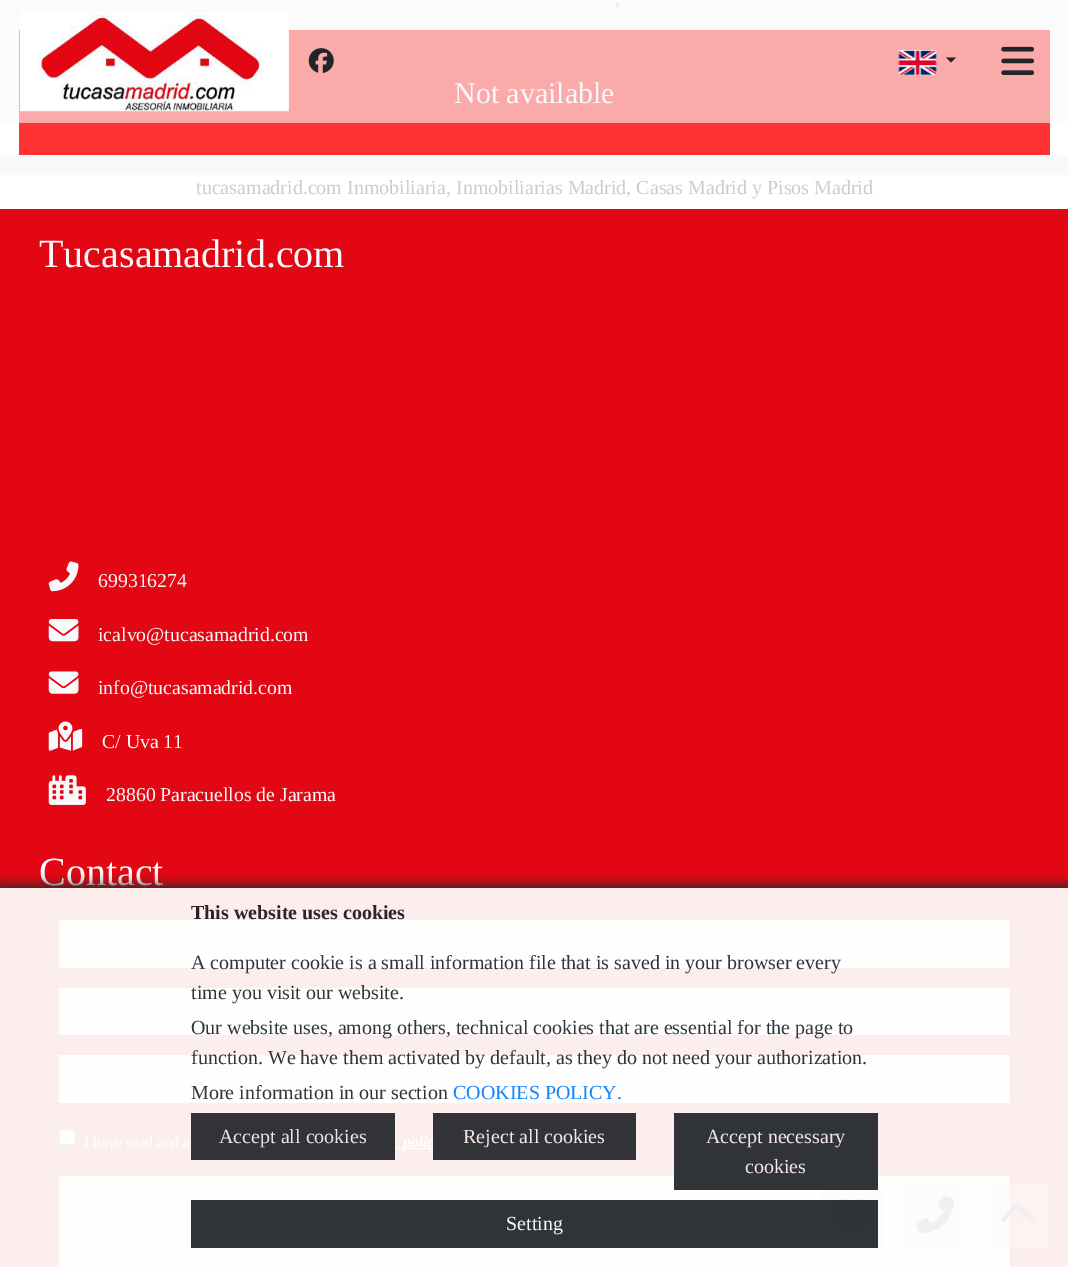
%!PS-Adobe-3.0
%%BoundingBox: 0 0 1068 1267
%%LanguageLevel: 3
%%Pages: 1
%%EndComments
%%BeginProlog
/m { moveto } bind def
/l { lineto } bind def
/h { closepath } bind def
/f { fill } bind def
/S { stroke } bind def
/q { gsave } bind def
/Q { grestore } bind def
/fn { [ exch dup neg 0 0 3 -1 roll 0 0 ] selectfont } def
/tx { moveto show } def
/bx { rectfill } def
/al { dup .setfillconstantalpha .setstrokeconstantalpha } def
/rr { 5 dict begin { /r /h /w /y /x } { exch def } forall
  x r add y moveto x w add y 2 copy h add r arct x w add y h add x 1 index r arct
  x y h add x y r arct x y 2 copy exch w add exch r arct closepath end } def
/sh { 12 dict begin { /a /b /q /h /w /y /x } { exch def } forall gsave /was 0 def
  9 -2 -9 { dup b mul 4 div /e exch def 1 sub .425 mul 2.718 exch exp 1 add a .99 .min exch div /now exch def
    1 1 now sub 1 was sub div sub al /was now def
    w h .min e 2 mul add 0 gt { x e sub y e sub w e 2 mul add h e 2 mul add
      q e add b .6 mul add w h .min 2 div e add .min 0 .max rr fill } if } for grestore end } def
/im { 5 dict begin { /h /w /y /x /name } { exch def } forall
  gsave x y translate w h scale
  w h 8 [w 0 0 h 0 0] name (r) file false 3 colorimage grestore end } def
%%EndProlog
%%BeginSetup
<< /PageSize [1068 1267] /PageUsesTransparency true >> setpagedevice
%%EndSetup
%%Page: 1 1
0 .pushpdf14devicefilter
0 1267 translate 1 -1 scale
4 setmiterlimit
1 setgray
0 0 1068 1267 bx
0.973 0.976 0.98 setrgbcolor
0 155 1068 20 bx
0.984 0.984 0.988 setrgbcolor
0 0 1068 123 bx
/LiberationSerif-Regular 20 fn
0.902 0.906 0.91 setrgbcolor
(,) 615 5 tx
1 0.2 0.2 setrgbcolor
19 123 1031 32 bx
0.984 0.667 0.667 setrgbcolor
19 30 1031 93 bx
/LiberationSerif-Regular 30 fn
0.973 0.976 0.98 setrgbcolor
(Not available) 454 103 tx
(image0.raw) 20 12 269 100 im
(image1.raw) 308 48 26 25 im
(image2.raw) 898 50 39 25 im
0.129 0.145 0.161 setrgbcolor
946 57.5 m 956 57.5 l 951 62.5 l h f
(image3.raw) 1001 46 34 29 im
/LiberationSerif-Regular 20 fn
0.8 setgray
(tucasamadrid.com Inmobiliaria, Inmobiliarias Madrid, Casas Madrid y Pisos Madrid) 196 194 tx
0.89 0.027 0.075 setrgbcolor
0 209 1068 679 bx
0.992 0.933 0.933 setrgbcolor
0 888 1068 379 bx
0.188 0.2 0.216 setrgbcolor
674 1113 204 63 bx
0.992 0.953 0.953 setrgbcolor
1010 1185 39 63 bx
/LiberationSerif-Regular 40 fn
0.973 0.976 0.98 setrgbcolor
(Tucasamadrid.com) 39 267 tx
(image4.raw) 48 561 31 31 im
/LiberationSerif-Regular 19.75 fn
(699316274) 98 587 tx
(image5.raw) 48 619 31 23 im
(icalvo@tucasamadrid.com) 98 641 tx
(image6.raw) 48 671 31 23 im
(info@tucasamadrid.com) 98 694 tx
(image7.raw) 48 721 35 30 im
(C/ Uva 11) 102 748 tx
(image8.raw) 48 775 38 30 im
(28860 Paracuellos de Jarama) 106 801 tx
/LiberationSerif-Regular 40 fn
(Contact) 39 885 tx
0.996 setgray
59 920 951 48 bx
59 988 951 47 bx
59 1055 951 48 bx
1 setgray
59.5 1129.5 15 15 2 rr q f Q
0.961 setgray
S
/LiberationSerif-Regular 15.5 fn
1 setgray
(I have read and a) 84 1147 tx
353 1148 87 1 bx
/LiberationSerif-BoldItalic 15.5 fn
(polic) 403 1147 tx
0.996 setgray
59 1176 951 91 bx
0.188 0.204 0.22 setrgbcolor
191 1200 630 48 bx
674 1176 204 14 bx
0.992 0.984 0.984 setrgbcolor
986 1185 24 63 bx
821 1185 63 63 bx
0.188 0.204 0.22 setrgbcolor
821 1200 57 48 bx
821 1185 57 5 bx
(image9.raw) 833 1199 39 33 im
0.992 0.984 0.984 setrgbcolor
904 1185 62 63 bx
(image10.raw) 916 1196 38 38 im
(image11.raw) 1001 1203 33 19 im
q
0 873 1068 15 rectclip
0.129 0.145 0.161 setrgbcolor
0 885 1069 380 0 6 0.93 sh
Q
/LiberationSerif-Bold 20 fn
0.184 0.137 0.153 setrgbcolor
(This website uses cookies) 191 919 tx
/LiberationSerif-Regular 20 fn
0.192 0.208 0.224 setrgbcolor
(A computer cookie is a small information file that is saved in your browser every) 191 969 tx
(time you visit our website.) 191 999 tx
(Our website uses, among others, technical cookies that are essential for the page to) 191 1034 tx
(function. We have them activated by default, as they do not need your authorization.) 191 1064 tx
(More information in our section) 191 1099 tx
0.071 0.518 0.996 setrgbcolor
(COOKIES POLICY.) 453 1099 tx
0.93 al
0.129 0.145 0.161 setrgbcolor
191 1113 204 47 bx
1 al
0.902 0.906 0.91 setrgbcolor
(Accept all cookies) 219 1143 tx
0.93 al
0.129 0.145 0.161 setrgbcolor
433 1113 203 47 bx
1 al
0.965 0.906 0.914 setrgbcolor
(Reject all cookies) 463 1143 tx
(Accept necessary) 706 1143 tx
(cookies) 745 1173 tx
0.973 0.976 0.98 setrgbcolor
(Setting) 506 1230 tx
.poppdf14devicefilter showpage
%%EOF
